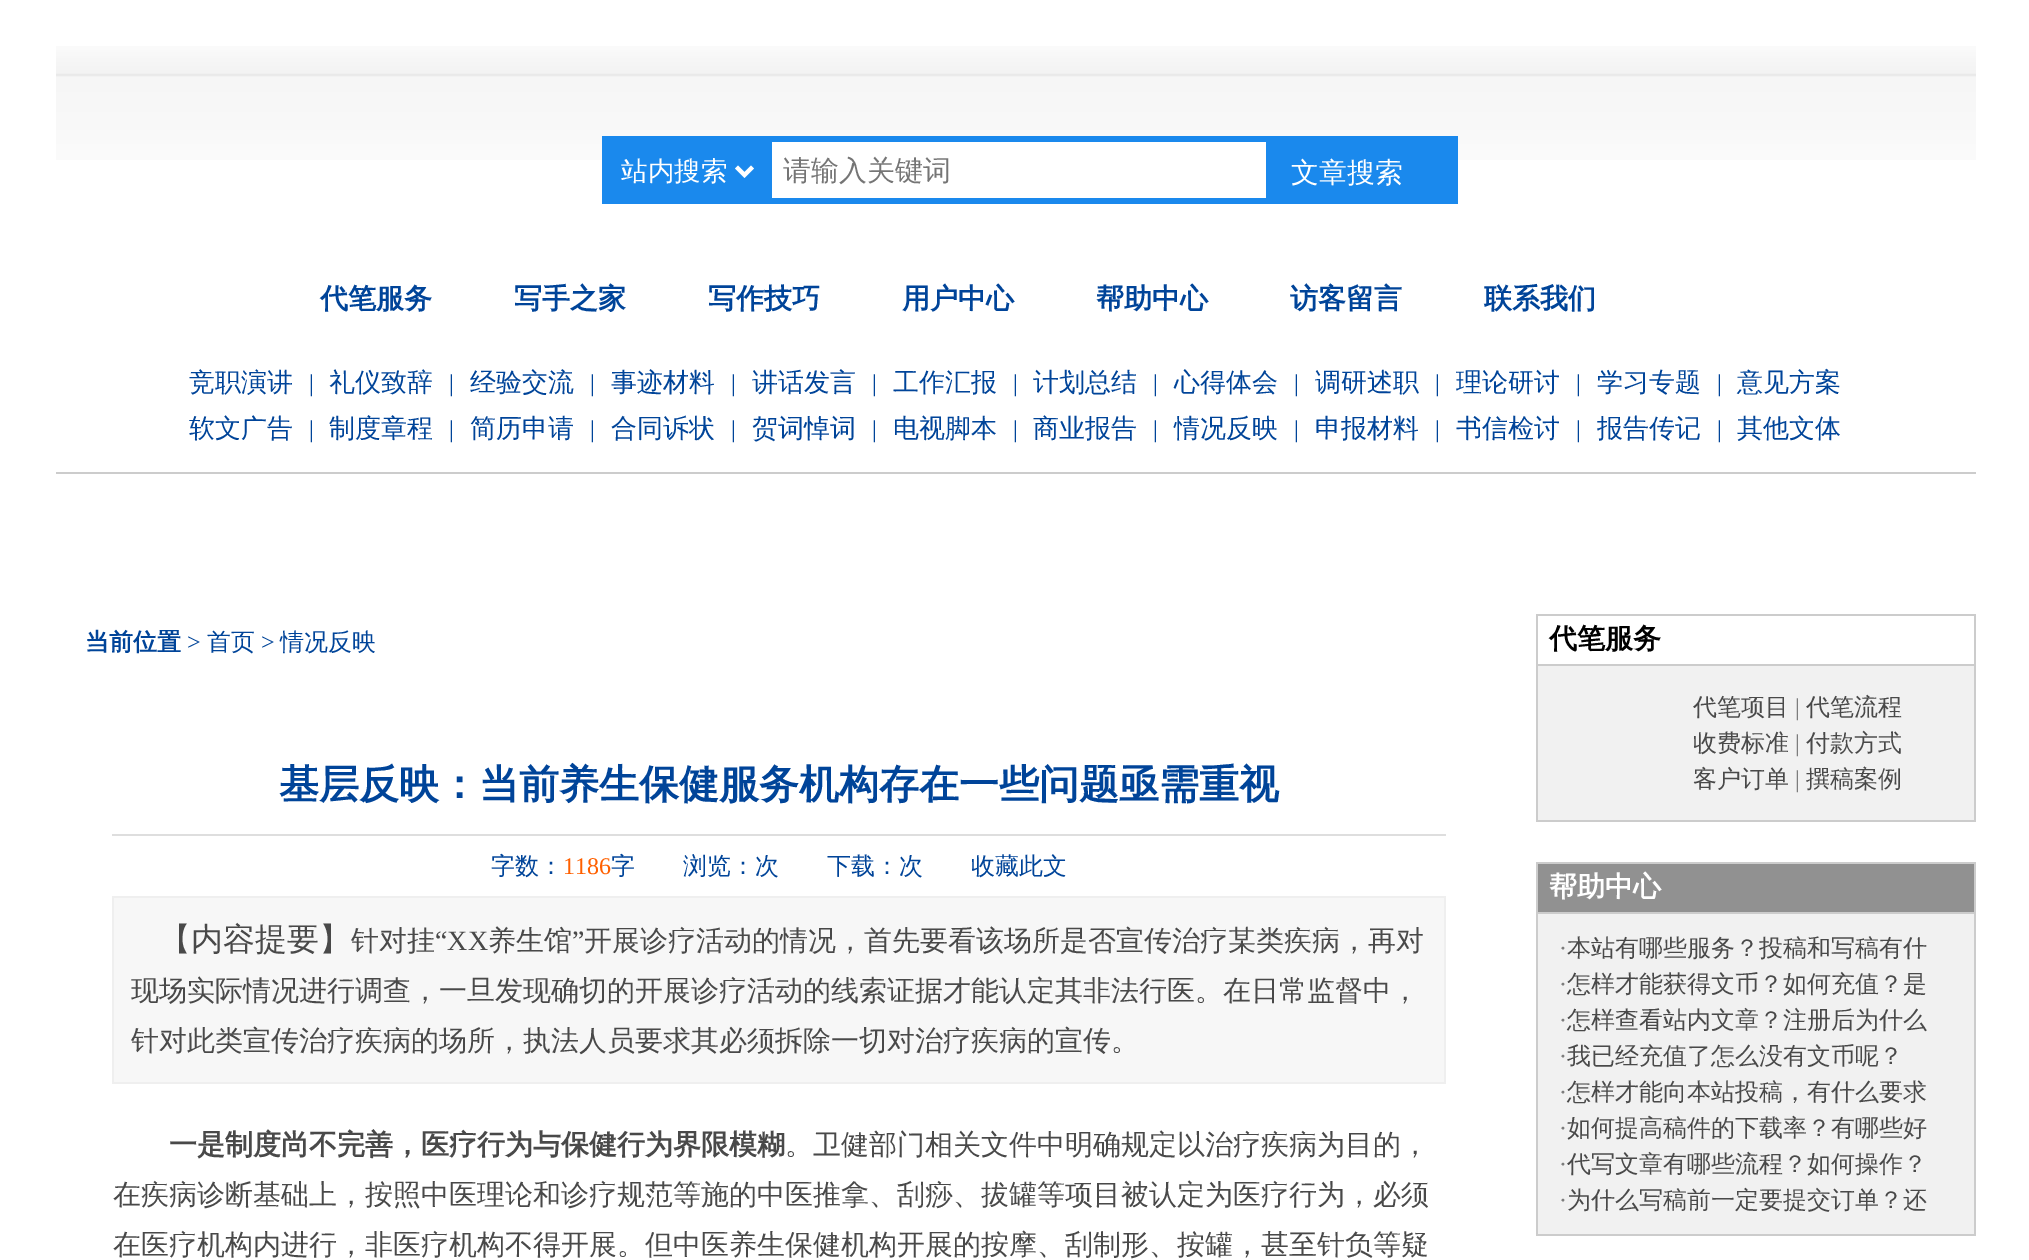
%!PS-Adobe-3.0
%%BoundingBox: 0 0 2029 1260
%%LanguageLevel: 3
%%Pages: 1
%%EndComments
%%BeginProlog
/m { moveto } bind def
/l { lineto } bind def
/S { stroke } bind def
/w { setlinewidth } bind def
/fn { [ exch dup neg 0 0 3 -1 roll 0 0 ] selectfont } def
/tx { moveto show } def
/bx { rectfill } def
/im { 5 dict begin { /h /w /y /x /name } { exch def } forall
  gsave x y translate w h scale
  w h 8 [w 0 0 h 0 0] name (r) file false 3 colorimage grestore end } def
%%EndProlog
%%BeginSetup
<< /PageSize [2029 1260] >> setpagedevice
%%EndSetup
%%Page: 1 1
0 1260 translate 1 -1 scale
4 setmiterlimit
1 setgray
0 0 2029 1260 bx
(image0.raw) 56 46 1920 114 im
0.102 0.537 0.929 setrgbcolor
602 136 856 68 bx
1 setgray
4 w
736.5 167 m 744.5 175 l 752.5 167 l S
/WenQuanYiZenHei-Medium 26.5 fn
(站内搜索) 621 180 tx
772 142 494 56 bx
/WenQuanYiZenHei-Medium 28 fn
0.459 setgray
(请输入关键词) 783 180 tx
1 setgray
(文章搜索) 1291 182 tx
/WenQuanYiZenHei-Bold 28 fn
0 0.267 0.6 setrgbcolor
(代笔服务) 320 308 tx
(写手之家) 514 308 tx
(写作技巧) 708 308 tx
(用户中心) 902 308 tx
(帮助中心) 1096 308 tx
(访客留言) 1290 308 tx
(联系我们) 1484 308 tx
/WenQuanYiZenHei-Medium 26 fn
(竞职演讲) 189 391 tx
/LiberationSerif-Regular 24 fn
(|) 309 391 tx
/WenQuanYiZenHei-Medium 26 fn
(礼仪致辞) 329 391 tx
/LiberationSerif-Regular 24 fn
(|) 449 391 tx
/WenQuanYiZenHei-Medium 26 fn
(经验交流) 470 391 tx
/LiberationSerif-Regular 24 fn
(|) 590 391 tx
/WenQuanYiZenHei-Medium 26 fn
(事迹材料) 611 391 tx
/LiberationSerif-Regular 24 fn
(|) 731 391 tx
/WenQuanYiZenHei-Medium 26 fn
(讲话发言) 752 391 tx
/LiberationSerif-Regular 24 fn
(|) 872 391 tx
/WenQuanYiZenHei-Medium 26 fn
(工作汇报) 893 391 tx
/LiberationSerif-Regular 24 fn
(|) 1013 391 tx
/WenQuanYiZenHei-Medium 26 fn
(计划总结) 1033 391 tx
/LiberationSerif-Regular 24 fn
(|) 1153 391 tx
/WenQuanYiZenHei-Medium 26 fn
(心得体会) 1174 391 tx
/LiberationSerif-Regular 24 fn
(|) 1294 391 tx
/WenQuanYiZenHei-Medium 26 fn
(调研述职) 1315 391 tx
/LiberationSerif-Regular 24 fn
(|) 1435 391 tx
/WenQuanYiZenHei-Medium 26 fn
(理论研讨) 1456 391 tx
/LiberationSerif-Regular 24 fn
(|) 1576 391 tx
/WenQuanYiZenHei-Medium 26 fn
(学习专题) 1597 391 tx
/LiberationSerif-Regular 24 fn
(|) 1717 391 tx
/WenQuanYiZenHei-Medium 26 fn
(意见方案) 1737 391 tx
(软文广告) 189 437 tx
/LiberationSerif-Regular 24 fn
(|) 309 437 tx
/WenQuanYiZenHei-Medium 26 fn
(制度章程) 329 437 tx
/LiberationSerif-Regular 24 fn
(|) 449 437 tx
/WenQuanYiZenHei-Medium 26 fn
(简历申请) 470 437 tx
/LiberationSerif-Regular 24 fn
(|) 590 437 tx
/WenQuanYiZenHei-Medium 26 fn
(合同诉状) 611 437 tx
/LiberationSerif-Regular 24 fn
(|) 731 437 tx
/WenQuanYiZenHei-Medium 26 fn
(贺词悼词) 752 437 tx
/LiberationSerif-Regular 24 fn
(|) 872 437 tx
/WenQuanYiZenHei-Medium 26 fn
(电视脚本) 893 437 tx
/LiberationSerif-Regular 24 fn
(|) 1013 437 tx
/WenQuanYiZenHei-Medium 26 fn
(商业报告) 1033 437 tx
/LiberationSerif-Regular 24 fn
(|) 1153 437 tx
/WenQuanYiZenHei-Medium 26 fn
(情况反映) 1174 437 tx
/LiberationSerif-Regular 24 fn
(|) 1294 437 tx
/WenQuanYiZenHei-Medium 26 fn
(申报材料) 1315 437 tx
/LiberationSerif-Regular 24 fn
(|) 1435 437 tx
/WenQuanYiZenHei-Medium 26 fn
(书信检讨) 1456 437 tx
/LiberationSerif-Regular 24 fn
(|) 1576 437 tx
/WenQuanYiZenHei-Medium 26 fn
(报告传记) 1597 437 tx
/LiberationSerif-Regular 24 fn
(|) 1717 437 tx
/WenQuanYiZenHei-Medium 26 fn
(其他文体) 1737 437 tx
0.8 setgray
56 472 1920 2 bx
/WenQuanYiZenHei-Bold 24 fn
0 0.267 0.6 setrgbcolor
(当前位置) 85 650 tx
/LiberationSerif-Regular 24 fn
(>) 187 650 tx
/WenQuanYiZenHei-Medium 24 fn
(首页) 207 650 tx
/LiberationSerif-Regular 24 fn
(>) 261 650 tx
/WenQuanYiZenHei-Medium 24 fn
(情况反映) 280 650 tx
/WenQuanYiZenHei-Bold 40 fn
(基层反映：当前养生保健服务机构存在一些问题亟需重视) 279 798 tx
0.871 setgray
112 834 1334 2 bx
/WenQuanYiZenHei-Medium 24 fn
0 0.267 0.6 setrgbcolor
(字数：) 491 874 tx
/LiberationSerif-Regular 24 fn
1 0.376 0 setrgbcolor
(1186) 563 874 tx
/WenQuanYiZenHei-Medium 24 fn
0 0.267 0.6 setrgbcolor
(字　　浏览：次　　下载：次) 611 874 tx
(收藏此文) 971 874 tx
0.937 setgray
112 896 1334 188 bx
0.969 setgray
114 898 1330 184 bx
/WenQuanYiZenHei-Medium 32 fn
0.286 setgray
(【内容提要】) 159 950 tx
/WenQuanYiZenHei-Medium 28 fn
(针对挂) 351 950 tx
/LiberationSerif-Regular 28 fn
(“XX) 435 950 tx
/WenQuanYiZenHei-Medium 28 fn
(养生馆) 488 950 tx
/LiberationSerif-Regular 28 fn
(”) 572 950 tx
/WenQuanYiZenHei-Medium 28 fn
(开展诊疗活动的情况，首先要看该场所是否宣传治疗某类疾病，再对) 584 950 tx
(现场实际情况进行调查，一旦发现确切的开展诊疗活动的线索证据才能认定其非法行医。在日常监督中，) 131 1000 tx
(针对此类宣传治疗疾病的场所，执法人员要求其必须拆除一切对治疗疾病的宣传。) 131 1050 tx
/WenQuanYiZenHei-Bold 28 fn
(一是制度尚不完善，医疗行为与保健行为界限模糊) 169 1154 tx
/WenQuanYiZenHei-Medium 28 fn
(。卫健部门相关文件中明确规定以治疗疾病为目的，) 785 1154 tx
(在疾病诊断基础上，按照中医理论和诊疗规范等施的中医推拿、刮痧、拔罐等项目被认定为医疗行为，必须) 113 1204 tx
(在医疗机构内进行，非医疗机构不得开展。但中医养生保健机构开展的按摩、刮制形、按罐，甚至针负等疑) 113 1254 tx
0.8 setgray
1536 614 440 208 bx
1 setgray
1538 616 436 48 bx
/WenQuanYiZenHei-Bold 28 fn
0 setgray
(代笔服务) 1549 648 tx
0.945 setgray
1538 666 436 154 bx
/WenQuanYiZenHei-Medium 24 fn
0.286 setgray
(代笔项目) 1693 715 tx
/LiberationSerif-Regular 24 fn
0.49 setgray
(|) 1795 715 tx
/WenQuanYiZenHei-Medium 24 fn
0.286 setgray
(代笔流程) 1806 715 tx
(收费标准) 1693 751 tx
/LiberationSerif-Regular 24 fn
0.49 setgray
(|) 1795 751 tx
/WenQuanYiZenHei-Medium 24 fn
0.286 setgray
(付款方式) 1806 751 tx
(客户订单) 1693 787 tx
/LiberationSerif-Regular 24 fn
0.49 setgray
(|) 1795 787 tx
/WenQuanYiZenHei-Medium 24 fn
0.286 setgray
(撰稿案例) 1806 787 tx
0.8 setgray
1536 862 440 374 bx
0.569 setgray
1538 864 436 48 bx
/WenQuanYiZenHei-Bold 28 fn
1 setgray
(帮助中心) 1549 896 tx
0.945 setgray
1538 914 436 320 bx
/LiberationSerif-Regular 24 fn
0.49 setgray
(·) 1559 956 tx
/WenQuanYiZenHei-Medium 24 fn
0.286 setgray
(本站有哪些服务？投稿和写稿有什) 1567 956 tx
/LiberationSerif-Regular 24 fn
0.49 setgray
(·) 1559 992 tx
/WenQuanYiZenHei-Medium 24 fn
0.286 setgray
(怎样才能获得文币？如何充值？是) 1567 992 tx
/LiberationSerif-Regular 24 fn
0.49 setgray
(·) 1559 1028 tx
/WenQuanYiZenHei-Medium 24 fn
0.286 setgray
(怎样查看站内文章？注册后为什么) 1567 1028 tx
/LiberationSerif-Regular 24 fn
0.49 setgray
(·) 1559 1064 tx
/WenQuanYiZenHei-Medium 24 fn
0.286 setgray
(我已经充值了怎么没有文币呢？) 1567 1064 tx
/LiberationSerif-Regular 24 fn
0.49 setgray
(·) 1559 1100 tx
/WenQuanYiZenHei-Medium 24 fn
0.286 setgray
(怎样才能向本站投稿，有什么要求) 1567 1100 tx
/LiberationSerif-Regular 24 fn
0.49 setgray
(·) 1559 1136 tx
/WenQuanYiZenHei-Medium 24 fn
0.286 setgray
(如何提高稿件的下载率？有哪些好) 1567 1136 tx
/LiberationSerif-Regular 24 fn
0.49 setgray
(·) 1559 1172 tx
/WenQuanYiZenHei-Medium 24 fn
0.286 setgray
(代写文章有哪些流程？如何操作？) 1567 1172 tx
/LiberationSerif-Regular 24 fn
0.49 setgray
(·) 1559 1208 tx
/WenQuanYiZenHei-Medium 24 fn
0.286 setgray
(为什么写稿前一定要提交订单？还) 1567 1208 tx
showpage
%%EOF
